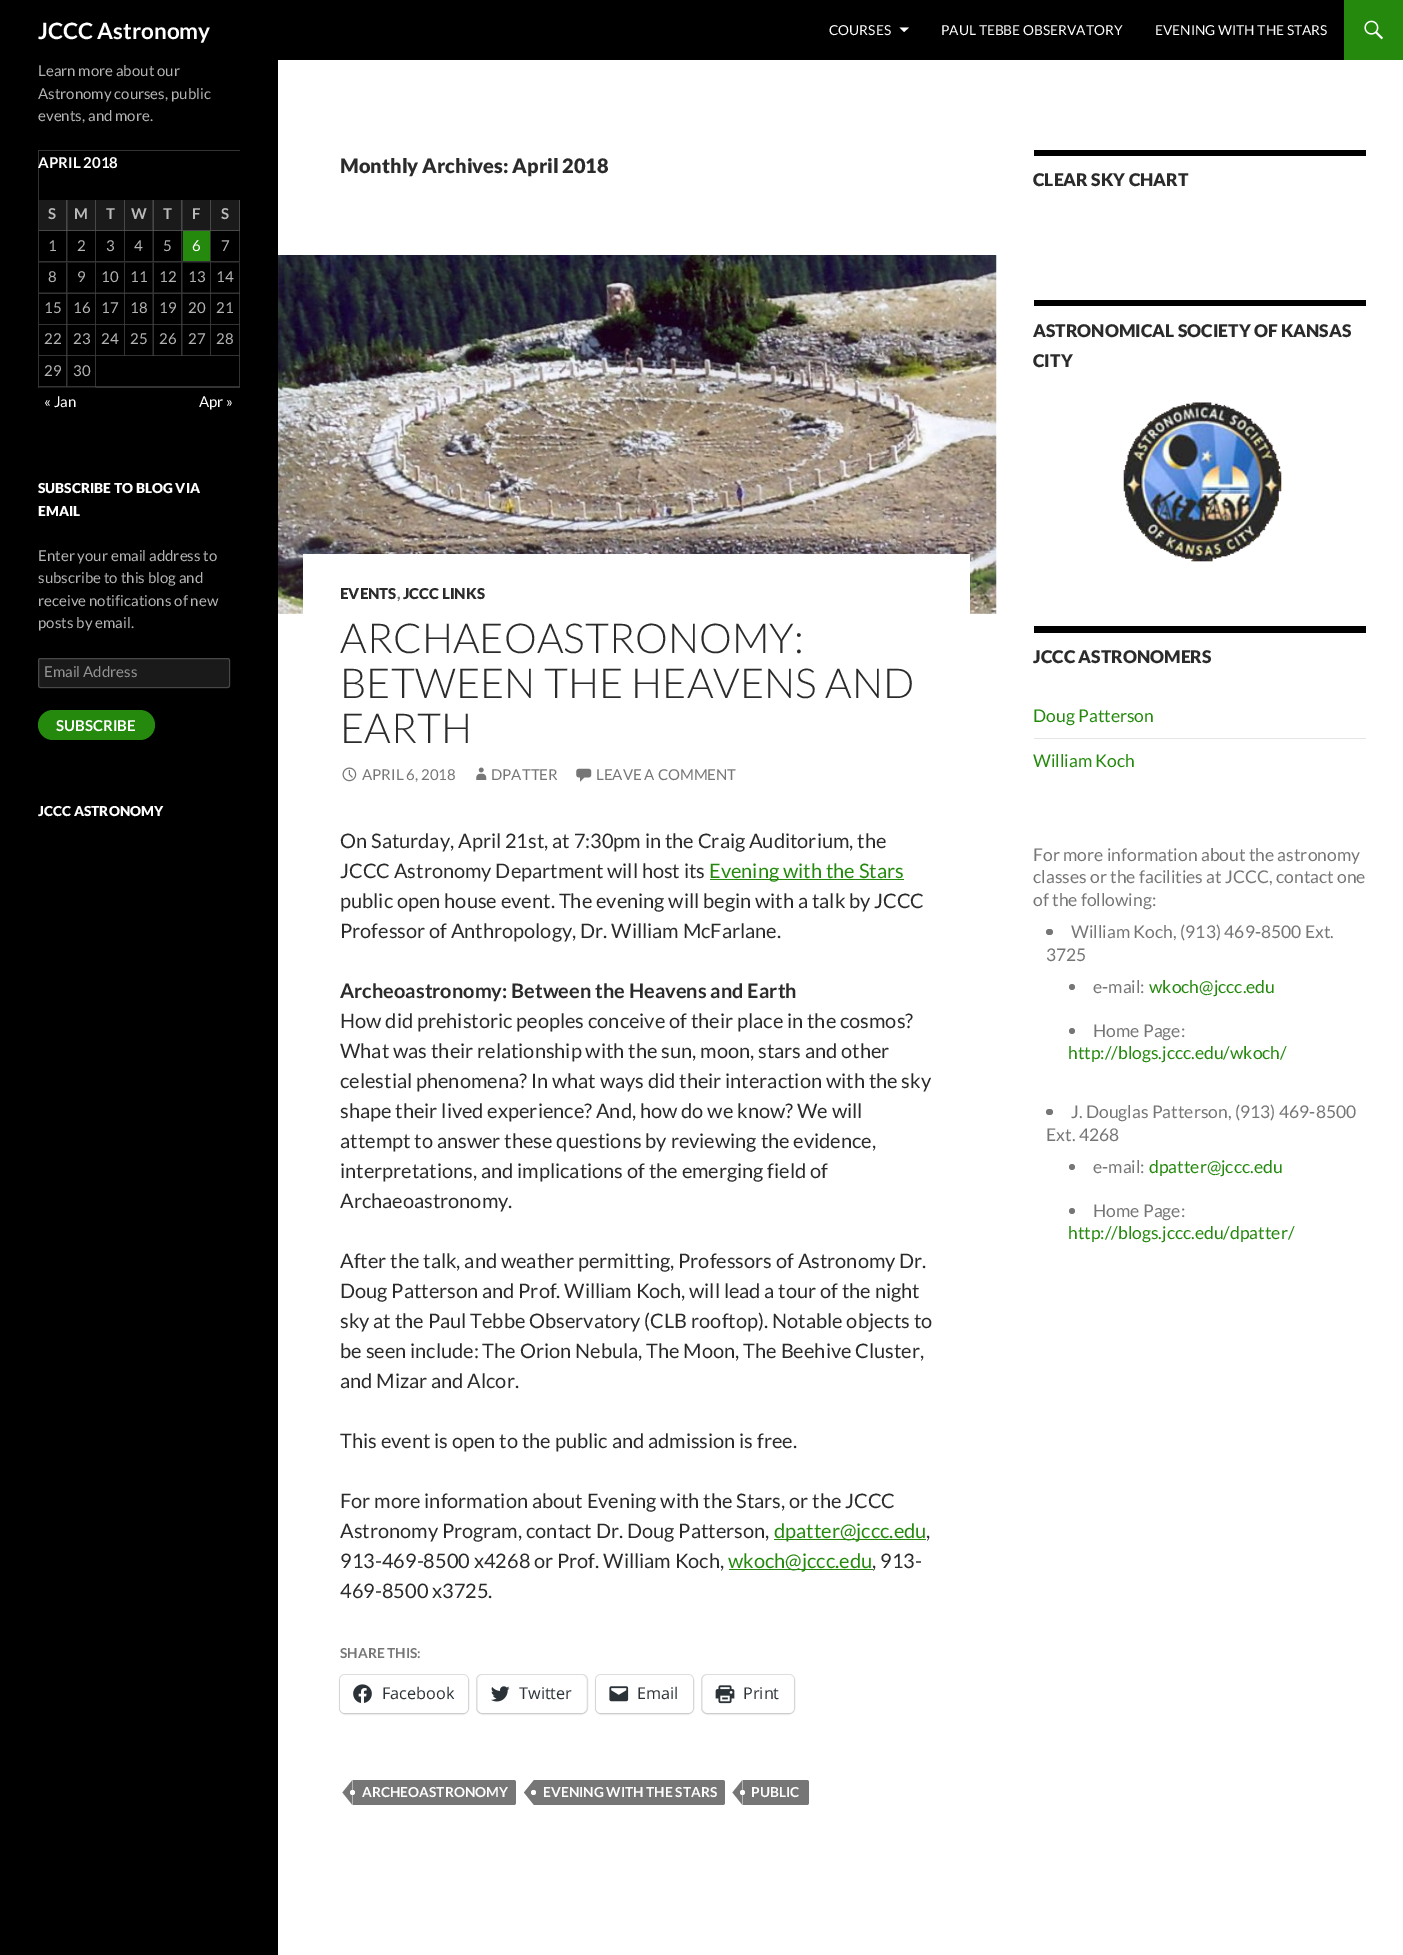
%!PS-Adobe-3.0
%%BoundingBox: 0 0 1403 1955
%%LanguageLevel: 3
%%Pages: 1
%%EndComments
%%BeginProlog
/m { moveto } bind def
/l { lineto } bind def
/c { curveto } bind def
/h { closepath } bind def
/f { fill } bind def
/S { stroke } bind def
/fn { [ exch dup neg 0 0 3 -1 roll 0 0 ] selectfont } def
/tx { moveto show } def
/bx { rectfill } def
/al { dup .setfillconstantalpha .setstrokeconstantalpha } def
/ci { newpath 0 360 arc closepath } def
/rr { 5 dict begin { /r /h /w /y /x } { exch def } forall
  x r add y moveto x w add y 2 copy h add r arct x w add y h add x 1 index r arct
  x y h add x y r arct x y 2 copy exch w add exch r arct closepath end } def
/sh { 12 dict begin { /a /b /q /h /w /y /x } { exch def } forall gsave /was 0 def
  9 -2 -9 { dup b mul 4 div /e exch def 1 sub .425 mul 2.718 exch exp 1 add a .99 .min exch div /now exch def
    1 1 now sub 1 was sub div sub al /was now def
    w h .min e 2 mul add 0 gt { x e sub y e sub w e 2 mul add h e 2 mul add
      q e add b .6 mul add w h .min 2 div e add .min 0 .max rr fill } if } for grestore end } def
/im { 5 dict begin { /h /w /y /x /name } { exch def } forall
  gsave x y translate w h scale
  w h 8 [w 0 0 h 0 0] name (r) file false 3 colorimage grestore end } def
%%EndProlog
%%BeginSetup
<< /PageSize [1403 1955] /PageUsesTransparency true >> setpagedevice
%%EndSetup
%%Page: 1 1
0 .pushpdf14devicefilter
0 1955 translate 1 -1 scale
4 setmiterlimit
0 setgray
0 0 1403 1955 bx
1 setgray
278 60 1125 1895 bx
/Lato-Bold 22.5 fn
(JCCC Astronomy) 38 39 tx
/Lato-Regular 13.75 fn
(COURSES) 829 35 tx
899.5 27.5 m 909 27.5 l 904 32 l h f
(PAUL TEBBE OBSERVATORY) 941 35 tx
(EVENING WITH THE STARS) 1155 35 tx
0.141 0.537 0.051 setrgbcolor
1344 0 59 60 bx
(image0.raw) 1364 20 19 20 im
/Lato-Regular 15 fn
0.702 setgray
(Learn more about our) 38 76 tx
(Astronomy courses, public) 38 99 tx
(events, and more.) 38 121 tx
0.2 setgray
38 150 m 240 150 l 240 151 l 39 151 l h f
0.2 al
1 setgray
38 388 m 38 150 l 39 151 l 39 388 l h f
/Lato-Bold 15 fn
1 al
(APRIL 2018) 38 168 tx
0.102 setgray
39 200 201 31 bx
0.282 setgray
67.5 200 m 67.5 231 l 66 230 l 66 200 l h f
0.2 al
1 setgray
67.5 231 m 39 231 l 39 230 l 66 230 l h f
1 al
0.729 setgray
(S) 48 219 tx
0.282 setgray
96 200 m 96 231 l 95 230 l 95 200 l h f
0.2 al
1 setgray
96 231 m 67.5 231 l 67.5 230 l 95 230 l h f
1 al
0.729 setgray
(M) 74 219 tx
0.282 setgray
125 200 m 125 231 l 124 230 l 124 200 l h f
0.2 al
1 setgray
125 231 m 96 231 l 96 230 l 124 230 l h f
1 al
0.729 setgray
(T) 106 219 tx
0.282 setgray
154 200 m 154 231 l 152.5 230 l 152.5 200 l h f
0.2 al
1 setgray
154 231 m 125 231 l 125 230 l 152.5 230 l h f
1 al
0.729 setgray
(W) 131 219 tx
0.282 setgray
182.5 200 m 182.5 231 l 181 230 l 181 200 l h f
0.2 al
1 setgray
182.5 231 m 154 231 l 154 230 l 181 230 l h f
1 al
0.729 setgray
(T) 163 219 tx
0.282 setgray
211 200 m 211 231 l 210 230 l 210 200 l h f
0.2 al
1 setgray
211 231 m 182.5 231 l 182.5 230 l 210 230 l h f
1 al
0.729 setgray
(F) 192 219 tx
0.282 setgray
240 200 m 240 231 l 239 230 l 239 200 l h f
0.2 al
1 setgray
240 231 m 211 231 l 211 230 l 239 230 l h f
1 al
0.729 setgray
(S) 221 219 tx
0.2 setgray
67.5 231 m 67.5 262.5 l 66 261 l 66 231 l h f
0.2 al
1 setgray
67.5 262.5 m 39 262.5 l 39 261 l 66 261 l h f
/Lato-Regular 15 fn
1 al
0.702 setgray
(1) 48 251 tx
0.2 setgray
96 231 m 96 262.5 l 95 261 l 95 231 l h f
0.2 al
1 setgray
96 262.5 m 67.5 262.5 l 67.5 261 l 95 261 l h f
1 al
0.702 setgray
(2) 77 251 tx
0.2 setgray
125 231 m 125 262.5 l 124 261 l 124 231 l h f
125 262.5 m 96 262.5 l 96 261 l 124 261 l h 154 231 m 154 262.5 l 152.5 261 l 152.5 231 l h f
0.702 setgray
(3) 106 251 tx
0.2 al
1 setgray
154 262.5 m 125 262.5 l 125 261 l 152.5 261 l h f
1 al
0.702 setgray
(4) 134 251 tx
0.2 setgray
182.5 231 m 182.5 262.5 l 181 261 l 181 231 l h f
0.2 al
1 setgray
182.5 262.5 m 154 262.5 l 154 261 l 181 261 l h f
1 al
0.702 setgray
(5) 163 251 tx
0.2 setgray
211 231 m 211 262.5 l 210 261 l 210 231 l h f
0.2 al
1 setgray
211 262.5 m 182.5 262.5 l 182.5 261 l 210 261 l h f
1 al
0.141 0.537 0.051 setrgbcolor
183 231 27 30 bx
1 setgray
(6) 192 251 tx
0.2 setgray
240 231 m 240 262.5 l 239 261 l 239 231 l h f
240 262.5 m 211 262.5 l 211 261 l 239 261 l h f
0.702 setgray
(7) 221 251 tx
0.2 setgray
67.5 262.5 m 67.5 294 l 66 292.5 l 66 262.5 l h f
0.2 al
1 setgray
67.5 294 m 39 294 l 39 292.5 l 66 292.5 l h f
1 al
0.702 setgray
(8) 48 282 tx
0.2 setgray
96 262.5 m 96 294 l 95 292.5 l 95 262.5 l h f
0.2 al
1 setgray
96 294 m 67.5 294 l 67.5 292.5 l 95 292.5 l h f
1 al
0.702 setgray
(9) 77 282 tx
0.2 setgray
125 262.5 m 125 294 l 124 292.5 l 124 262.5 l h f
0.2 al
1 setgray
125 294 m 96 294 l 96 292.5 l 124 292.5 l h f
1 al
0.702 setgray
(10) 101 282 tx
0.2 setgray
154 262.5 m 154 294 l 152.5 292.5 l 152.5 262.5 l h f
0.2 al
1 setgray
154 294 m 125 294 l 125 292.5 l 152.5 292.5 l h f
1 al
0.702 setgray
(11) 130 282 tx
0.2 setgray
182.5 262.5 m 182.5 294 l 181 292.5 l 181 262.5 l h f
0.2 al
1 setgray
182.5 294 m 154 294 l 154 292.5 l 181 292.5 l h f
1 al
0.702 setgray
(12) 159 282 tx
0.2 setgray
211 262.5 m 211 294 l 210 292.5 l 210 262.5 l h f
0.2 al
1 setgray
211 294 m 182.5 294 l 182.5 292.5 l 210 292.5 l h f
1 al
0.702 setgray
(13) 188 282 tx
0.2 setgray
240 262.5 m 240 294 l 239 292.5 l 239 262.5 l h f
0.2 al
1 setgray
240 294 m 211 294 l 211 292.5 l 239 292.5 l h f
1 al
0.702 setgray
(14) 216 282 tx
0.2 setgray
67.5 294 m 67.5 325 l 66 324 l 66 294 l h f
0.2 al
1 setgray
67.5 325 m 39 325 l 39 324 l 66 324 l h f
1 al
0.702 setgray
(15) 44 313 tx
0.2 setgray
96 294 m 96 325 l 95 324 l 95 294 l h f
0.2 al
1 setgray
96 325 m 67.5 325 l 67.5 324 l 95 324 l h f
1 al
0.702 setgray
(16) 73 313 tx
0.2 setgray
125 294 m 125 325 l 124 324 l 124 294 l h f
0.2 al
1 setgray
125 325 m 96 325 l 96 324 l 124 324 l h f
1 al
0.702 setgray
(17) 101 313 tx
0.2 setgray
154 294 m 154 325 l 152.5 324 l 152.5 294 l h f
0.2 al
1 setgray
154 325 m 125 325 l 125 324 l 152.5 324 l h f
1 al
0.702 setgray
(18) 130 313 tx
0.2 setgray
182.5 294 m 182.5 325 l 181 324 l 181 294 l h f
0.2 al
1 setgray
182.5 325 m 154 325 l 154 324 l 181 324 l h f
1 al
0.702 setgray
(19) 159 313 tx
0.2 setgray
211 294 m 211 325 l 210 324 l 210 294 l h f
0.2 al
1 setgray
211 325 m 182.5 325 l 182.5 324 l 210 324 l h f
1 al
0.702 setgray
(20) 188 313 tx
0.2 setgray
240 294 m 240 325 l 239 324 l 239 294 l h f
0.2 al
1 setgray
240 325 m 211 325 l 211 324 l 239 324 l h f
1 al
0.702 setgray
(21) 216 313 tx
0.2 setgray
67.5 325 m 67.5 356 l 66 355 l 66 325 l h f
0.2 al
1 setgray
67.5 356 m 39 356 l 39 355 l 66 355 l h f
1 al
0.702 setgray
(22) 44 344 tx
0.2 setgray
96 325 m 96 356 l 95 355 l 95 325 l h f
0.2 al
1 setgray
96 356 m 67.5 356 l 67.5 355 l 95 355 l h f
1 al
0.702 setgray
(23) 73 344 tx
0.2 setgray
125 325 m 125 356 l 124 355 l 124 325 l h f
0.2 al
1 setgray
125 356 m 96 356 l 96 355 l 124 355 l h f
1 al
0.702 setgray
(24) 101 344 tx
0.2 setgray
154 325 m 154 356 l 152.5 355 l 152.5 325 l h f
0.2 al
1 setgray
154 356 m 125 356 l 125 355 l 152.5 355 l h f
1 al
0.702 setgray
(25) 130 344 tx
0.2 setgray
182.5 325 m 182.5 356 l 181 355 l 181 325 l h f
0.2 al
1 setgray
182.5 356 m 154 356 l 154 355 l 181 355 l h f
1 al
0.702 setgray
(26) 159 344 tx
0.2 setgray
211 325 m 211 356 l 210 355 l 210 325 l h f
0.2 al
1 setgray
211 356 m 182.5 356 l 182.5 355 l 210 355 l h f
1 al
0.702 setgray
(27) 188 344 tx
0.2 setgray
240 325 m 240 356 l 239 355 l 239 325 l h f
0.2 al
1 setgray
240 356 m 211 356 l 211 355 l 239 355 l h f
1 al
0.702 setgray
(28) 216 344 tx
0.2 setgray
67.5 356 m 67.5 387.5 l 66 386 l 66 356 l h f
0.2 al
1 setgray
67.5 387.5 m 39 387.5 l 39 386 l 66 386 l h f
1 al
0.702 setgray
(29) 44 376 tx
0.2 setgray
96 356 m 96 387.5 l 95 386 l 95 356 l h f
0.2 al
1 setgray
96 387.5 m 67.5 387.5 l 67.5 386 l 95 386 l h f
1 al
0.702 setgray
(30) 73 376 tx
0.2 setgray
240 356 m 240 387.5 l 239 386 l 239 356 l h f
0.2 al
1 setgray
240 388 m 96 388 l 96 386 l 239 386 l h f
1 al
(« Jan) 44 407 tx
(Apr ») 199 407 tx
/Lato-Black 13.75 fn
(SUBSCRIBE TO BLOG VIA) 38 493 tx
(EMAIL) 38 516 tx
/Lato-Regular 15 fn
0.702 setgray
(Enter your email address to) 38 561 tx
(subscribe to this blog and) 38 583 tx
(receive notifications of new) 38 606 tx
(posts by email.) 38 628 tx
0.102 setgray
38 658 192 30 2.5 rr f
0.2 al
1 setgray
38.5 658.5 191 29 2 rr S
1 al
0.576 setgray
(Email Address) 44 677 tx
0.141 0.537 0.051 setrgbcolor
38 710 117 30 15 rr f
/Lato-Bold 15 fn
1 setgray
(SUBSCRIBE) 56 731 tx
/Lato-Black 13.75 fn
(JCCC ASTRONOMY) 38 816 tx
/Lato-Black 20 fn
0.169 setgray
(Monthly Archives: April 2018) 340 173 tx
(image1.raw) 278 613 718 1 im
(image2.raw) 278 255 719 359 im
1 setgray
303 554 667 60 bx
/Lato-Black 15 fn
0.169 setgray
(EVENTS) 340 599 tx
0.463 setgray
(,) 397 599 tx
0.169 setgray
(JCCC LINKS) 403 599 tx
/Lato-Light 41.25 fn
(ARCHAEOASTRONOMY:) 340 653 tx
(BETWEEN THE HEAVENS AND) 340 698 tx
(EARTH) 340 743 tx
(image3.raw) 342 767 15 15 im
/Lato-Regular 15 fn
0.463 setgray
(APRIL 6, 2018) 362 780 tx
(image4.raw) 476 767 11 13 im
(DPATTER) 491 780 tx
(image5.raw) 576 768 16 14 im
(LEAVE A COMMENT) 596 780 tx
/Lato-Regular 20 fn
0.169 setgray
(On Saturday, April 21st, at 7:30pm in the Craig Auditorium, the) 340 848 tx
(JCCC Astronomy Department will host its) 340 878 tx
0.141 0.537 0.051 setrgbcolor
710 879 194 1 bx
(Evening with the Stars) 709 878 tx
0.169 setgray
(public open house event. The evening will begin with a talk by JCCC) 340 908 tx
(Professor of Anthropology, Dr. William McFarlane.) 340 938 tx
/Lato-Bold 20 fn
(Archeoastronomy: Between the Heavens and Earth) 340 998 tx
/Lato-Regular 20 fn
(How did prehistoric peoples conceive of their place in the cosmos?) 340 1028 tx
(What was their relationship with the sun, moon, stars and other) 340 1058 tx
(celestial phenomena? In what ways did their interaction with the sky) 340 1088 tx
(shape their lived experience? And, how do we know? We will) 340 1118 tx
(attempt to answer these questions by reviewing the evidence,) 340 1148 tx
(interpretations, and implications of the emerging field of) 340 1178 tx
(Archaeoastronomy.) 340 1208 tx
(After the talk, and weather permitting, Professors of Astronomy Dr.) 340 1268 tx
(Doug Patterson and Prof. William Koch, will lead a tour of the night) 340 1298 tx
(sky at the Paul Tebbe Observatory \(CLB rooftop\). Notable objects to) 340 1328 tx
(be seen include: The Orion Nebula, The Moon, The Beehive Cluster,) 340 1358 tx
(and Mizar and Alcor.) 340 1388 tx
(This event is open to the public and admission is free.) 340 1448 tx
(For more information about Evening with the Stars, or the JCCC) 340 1508 tx
(Astronomy Program, contact Dr. Doug Patterson,) 340 1538 tx
0.141 0.537 0.051 setrgbcolor
774 1539 152 1 bx
(dpatter@jccc.edu) 774 1538 tx
0.169 setgray
(,) 926 1538 tx
(913-469-8500 x4268 or Prof. William Koch,) 340 1568 tx
0.141 0.537 0.051 setrgbcolor
729 1569 144 1 bx
(wkoch@jccc.edu) 728 1568 tx
0.169 setgray
(, 913-) 872 1568 tx
(469-8500 x3725.) 340 1598 tx
/Lato-Bold 13.75 fn
0.463 setgray
(SHARE THIS:) 340 1658 tx
0.878 setgray
339.5 1674.5 129 39 5.5 rr S
0 setgray
340 1676 128 38 5 1 0.12 sh
1 setgray
340 1675 128 38 5 rr f
(image6.raw) 353 1684 19 19 im
/OpenSans-Regular 16.25 fn
0.173 0.2 0.22 setrgbcolor
(Facebook) 382 1699 tx
0.878 setgray
476.5 1674.5 111 39 5.5 rr S
0 setgray
478 1676 108 38 5 1 0.12 sh
1 setgray
478 1675 108 38 5 rr f
(image7.raw) 491 1686 19 16 im
0.173 0.2 0.22 setrgbcolor
(Twitter) 519 1699 tx
0.878 setgray
595.5 1674.5 98 39 5.5 rr S
0 setgray
596 1676 97 38 5 1 0.12 sh
1 setgray
596 1675 97 38 5 rr f
(image8.raw) 609 1686 20 16 im
0.173 0.2 0.22 setrgbcolor
(Email) 637 1699 tx
0.878 setgray
701.5 1674.5 93 39 5.5 rr S
0 setgray
703 1676 91 38 5 1 0.12 sh
1 setgray
703 1675 91 38 5 rr f
(image9.raw) 715 1685 20 19 im
0.173 0.2 0.22 setrgbcolor
(Print) 743 1699 tx
0.463 setgray
353 1780 m 513.5 1780 l 515 1780 516 1781 516 1782.5 c 516 1802.5 l 516 1804 515 1805 513.5 1805 c 353 1805 l h f
352.5 1780 m 352.5 1805 l 342.5 1792.5 l h f
/Lato-Bold 13.75 fn
1 setgray
(ARCHEOASTRONOMY) 362 1797 tx
352.5 1792.5 2.5 ci f
0.463 setgray
534 1780 m 722.5 1780 l 724 1780 725 1781 725 1782.5 c 725 1802.5 l 725 1804 724 1805 722.5 1805 c 534 1805 l h f
534 1780 m 534 1805 l 524 1792.5 l h f
1 setgray
(EVENING WITH THE STARS) 543 1797 tx
533.5 1792.5 2.5 ci f
0.463 setgray
743 1780 m 806.5 1780 l 808 1780 809 1781 809 1782.5 c 809 1802.5 l 809 1804 808 1805 806.5 1805 c 743 1805 l h f
742.5 1780 m 742.5 1805 l 732.5 1792.5 l h f
1 setgray
(PUBLIC) 751 1797 tx
742.5 1792.5 2.5 ci f
0 setgray
1034 150 332 6 bx
/Lato-Black 17.5 fn
0.169 setgray
(CLEAR SKY CHART) 1033 186 tx
0 setgray
1034 300 332 6 bx
0.169 setgray
(ASTRONOMICAL SOCIETY OF KANSAS) 1033 337 tx
(CITY) 1033 367 tx
(image10.raw) 1123 402 159 160 im
0 setgray
1034 626 332 7 bx
0.169 setgray
(JCCC ASTRONOMERS) 1033 663 tx
/Lato-Regular 17.5 fn
0.141 0.537 0.051 setrgbcolor
(Doug Patterson) 1033 722 tx
0.902 setgray
1034 738 332 1 bx
0.141 0.537 0.051 setrgbcolor
(William Koch) 1033 767 tx
0.463 setgray
(For more information about the astronomy) 1033 861 tx
(classes or the facilities at JCCC, contact one) 1033 883 tx
(of the following:) 1033 906 tx
1046 929 7 6 3 rr f
(William Koch, \(913\) 469-8500 Ext.) 1071 938 tx
(3725) 1046 961 tx
1072 987 3 ci f
(e-mail:) 1093 993 tx
0.141 0.537 0.051 setrgbcolor
(wkoch@jccc.edu) 1149 993 tx
0.463 setgray
1072 1031 3 ci f
(Home Page:) 1093 1037 tx
0.141 0.537 0.051 setrgbcolor
(http://blogs.jccc.edu/wkoch/) 1068 1059 tx
0.463 setgray
1046 1109 7 6 3 rr f
(J. Douglas Patterson, \(913\) 469-8500) 1071 1118 tx
(Ext. 4268) 1046 1141 tx
1072 1167 3 ci f
(e-mail:) 1093 1173 tx
0.141 0.537 0.051 setrgbcolor
(dpatter@jccc.edu) 1149 1173 tx
0.463 setgray
1072 1211 3 ci f
(Home Page:) 1093 1217 tx
0.141 0.537 0.051 setrgbcolor
(http://blogs.jccc.edu/dpatter/) 1068 1239 tx
.poppdf14devicefilter showpage
%%EOF
